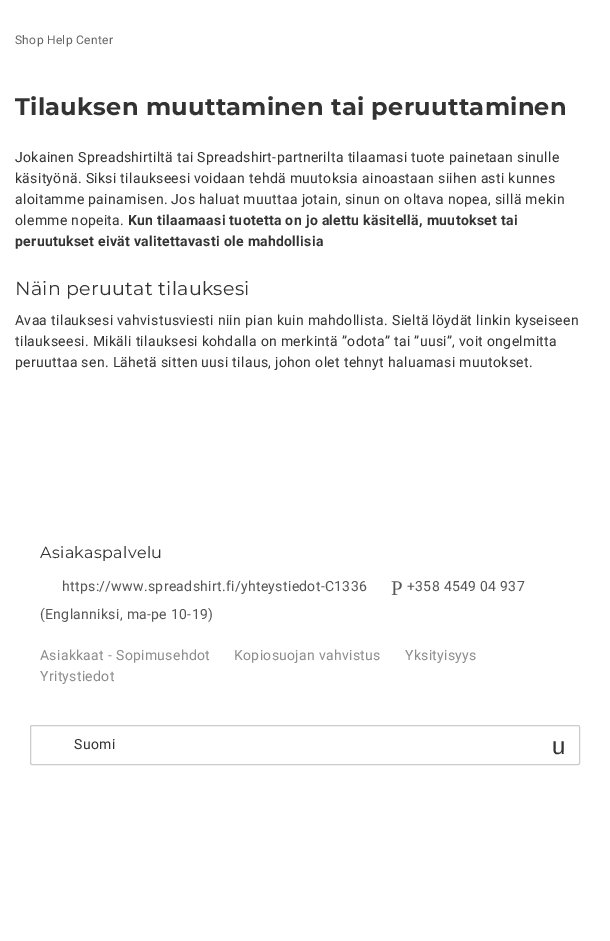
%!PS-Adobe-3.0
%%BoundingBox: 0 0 610 941
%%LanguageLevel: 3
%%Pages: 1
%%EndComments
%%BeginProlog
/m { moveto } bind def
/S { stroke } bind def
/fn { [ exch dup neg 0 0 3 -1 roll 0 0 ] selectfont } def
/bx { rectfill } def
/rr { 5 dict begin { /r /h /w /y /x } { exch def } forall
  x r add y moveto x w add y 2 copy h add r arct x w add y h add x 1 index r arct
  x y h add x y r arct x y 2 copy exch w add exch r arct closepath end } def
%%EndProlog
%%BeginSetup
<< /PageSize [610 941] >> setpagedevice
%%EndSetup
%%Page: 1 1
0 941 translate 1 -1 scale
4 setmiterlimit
1 setgray
0 0 610 941 bx
/Roboto-Regular 12 fn
0.4 setgray
15 44 m 0.32 0 (Shop Help Center) ashow
/Montserrat-Bold 24 fn
0.2 setgray
15 115 m 0.32 0 (Tilauksen muuttaminen tai peruuttaminen) ashow
/Roboto-Regular 14 fn
15 162 m 0.32 0 (Jokainen Spreadshirtiltä tai Spreadshirt-partnerilta tilaamasi tuote painetaan sinulle) ashow
15 183 m 0.32 0 (käsityönä. Siksi tilaukseesi voidaan tehdä muutoksia ainoastaan siihen asti kunnes) ashow
15 204 m 0.32 0 (aloitamme painamisen. Jos haluat muuttaa jotain, sinun on oltava nopea, sillä mekin) ashow
15 225 m 0.32 0 (olemme nopeita.) ashow
/Roboto-Bold 14 fn
128 225 m 0.32 0 (Kun tilaamaasi tuotetta on jo alettu käsitellä, muutokset tai) ashow
15 246 m 0.32 0 (peruutukset eivät valitettavasti ole mahdollisia) ashow
/Montserrat-Regular 19 fn
15 295 m 0.32 0 (Näin peruutat tilauksesi) ashow
/Roboto-Regular 14 fn
15 325 m 0.32 0 (Avaa tilauksesi vahvistusviesti niin pian kuin mahdollista. Sieltä löydät linkin kyseiseen) ashow
15 346 m 0.32 0 (tilaukseesi. Mikäli tilauksesi kohdalla on merkintä ”odota” tai ”uusi”, voit ongelmitta) ashow
15 367 m 0.32 0 (peruuttaa sen. Lähetä sitten uusi tilaus, johon olet tehnyt haluamasi muutokset.) ashow
/Montserrat-Regular 16 fn
40 558 m 0.32 0 (Asiakaspalvelu) ashow
/Roboto-Regular 14 fn
0.333 setgray
62 591 m 0.32 0 (https://www.spreadshirt.fi/yhteystiedot-C1336) ashow
/LiberationSerif-Regular 21 fn
391 595 m 0.32 0 (P) ashow
/Roboto-Regular 14 fn
407 591 m 0.32 0 (+358 4549 04 937) ashow
40 619 m 0.32 0 (\(Englanniksi, ma-pe 10-19\)) ashow
0.549 setgray
40 660 m 0.32 0 (Asiakkaat - Sopimusehdot) ashow
234 660 m 0.32 0 (Kopiosuojan vahvistus) ashow
405 660 m 0.32 0 (Yksityisyys) ashow
40 681 m 0.32 0 (Yritystiedot) ashow
0.8 setgray
30.5 725.5 549 39 1.5 rr S
0.2 setgray
74 749 m 0.32 0 (Suomi) ashow
/LiberationSans-Regular 24 fn
552 754 m 0.32 0 (u) ashow
showpage
%%EOF
